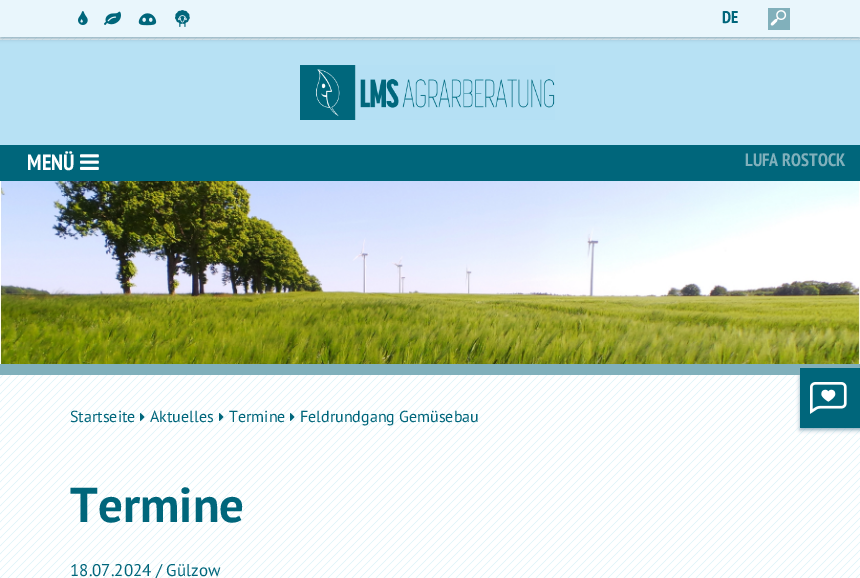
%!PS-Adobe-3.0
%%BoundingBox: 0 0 860 578
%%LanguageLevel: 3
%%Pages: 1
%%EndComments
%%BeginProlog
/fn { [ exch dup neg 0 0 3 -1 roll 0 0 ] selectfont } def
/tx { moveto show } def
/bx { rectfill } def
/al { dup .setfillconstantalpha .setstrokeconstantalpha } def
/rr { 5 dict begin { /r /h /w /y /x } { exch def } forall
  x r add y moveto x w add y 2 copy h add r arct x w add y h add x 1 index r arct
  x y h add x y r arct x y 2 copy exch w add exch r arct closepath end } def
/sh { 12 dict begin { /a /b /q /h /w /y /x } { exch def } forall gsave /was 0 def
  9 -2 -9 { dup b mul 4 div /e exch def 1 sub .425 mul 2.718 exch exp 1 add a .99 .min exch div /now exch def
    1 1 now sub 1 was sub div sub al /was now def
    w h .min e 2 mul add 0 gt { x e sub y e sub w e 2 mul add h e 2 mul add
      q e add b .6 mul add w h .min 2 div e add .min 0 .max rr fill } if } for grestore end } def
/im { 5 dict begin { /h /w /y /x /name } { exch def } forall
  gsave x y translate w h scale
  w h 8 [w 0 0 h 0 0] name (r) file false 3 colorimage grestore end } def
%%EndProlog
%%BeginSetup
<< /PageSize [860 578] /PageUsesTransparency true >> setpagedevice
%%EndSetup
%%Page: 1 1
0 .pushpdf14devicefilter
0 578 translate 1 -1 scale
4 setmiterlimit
1 setgray
0 0 860 578 bx
(image0.raw) 0 37 860 541 im
0.718 0.882 0.957 setrgbcolor
0 40 860 105 bx
0.549 0.678 0.737 setrgbcolor
0 2 860 37 0 2 1 sh
0.914 0.965 0.988 setrgbcolor
0 0 860 37 bx
(image1.raw) 78 11 10 14 im
(image2.raw) 104 11 17 14 im
(image3.raw) 138 13 19 13 im
(image4.raw) 175 10 15 17 im
/PTSansNarrow-Bold 17 fn
0 0.4 0.482 setrgbcolor
(DE) 722 23 tx
0.506 0.69 0.733 setrgbcolor
768 8 22 22 bx
(image5.raw) 770 10 17 16 im
(image6.raw) 300 65 255 55 im
0 0.4 0.482 setrgbcolor
0 145 860 36 bx
/PTSansNarrow-Bold 22 fn
1 setgray
(MENÜ) 27 170 tx
(image7.raw) 80 154 19 16 im
/PTSansNarrow-Bold 18 fn
0.506 0.69 0.733 setrgbcolor
(LUFA ROSTOCK) 745 166 tx
0 364 860 11 bx
(image8.raw) 0 181 860 183 im
0.549 0.678 0.737 setrgbcolor
800 370 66 60 0 2 1 sh
0 0.4 0.482 setrgbcolor
800 368 60 60 bx
(image9.raw) 810 382 37 32 im
/PTSans-Regular 16 fn
(Startseite) 70 422 tx
(image10.raw) 140 413 5 8 im
(Aktuelles) 150 422 tx
(image11.raw) 219 413 5 8 im
(Termine) 229 422 tx
(image12.raw) 290 413 5 8 im
(Feldrundgang Gemüsebau) 300 422 tx
/PTSans-Bold 49 fn
(Termine) 70 522 tx
/PTSans-Regular 17 fn
(18.07.2024 / Gülzow) 70 576 tx
.poppdf14devicefilter showpage
%%EOF
